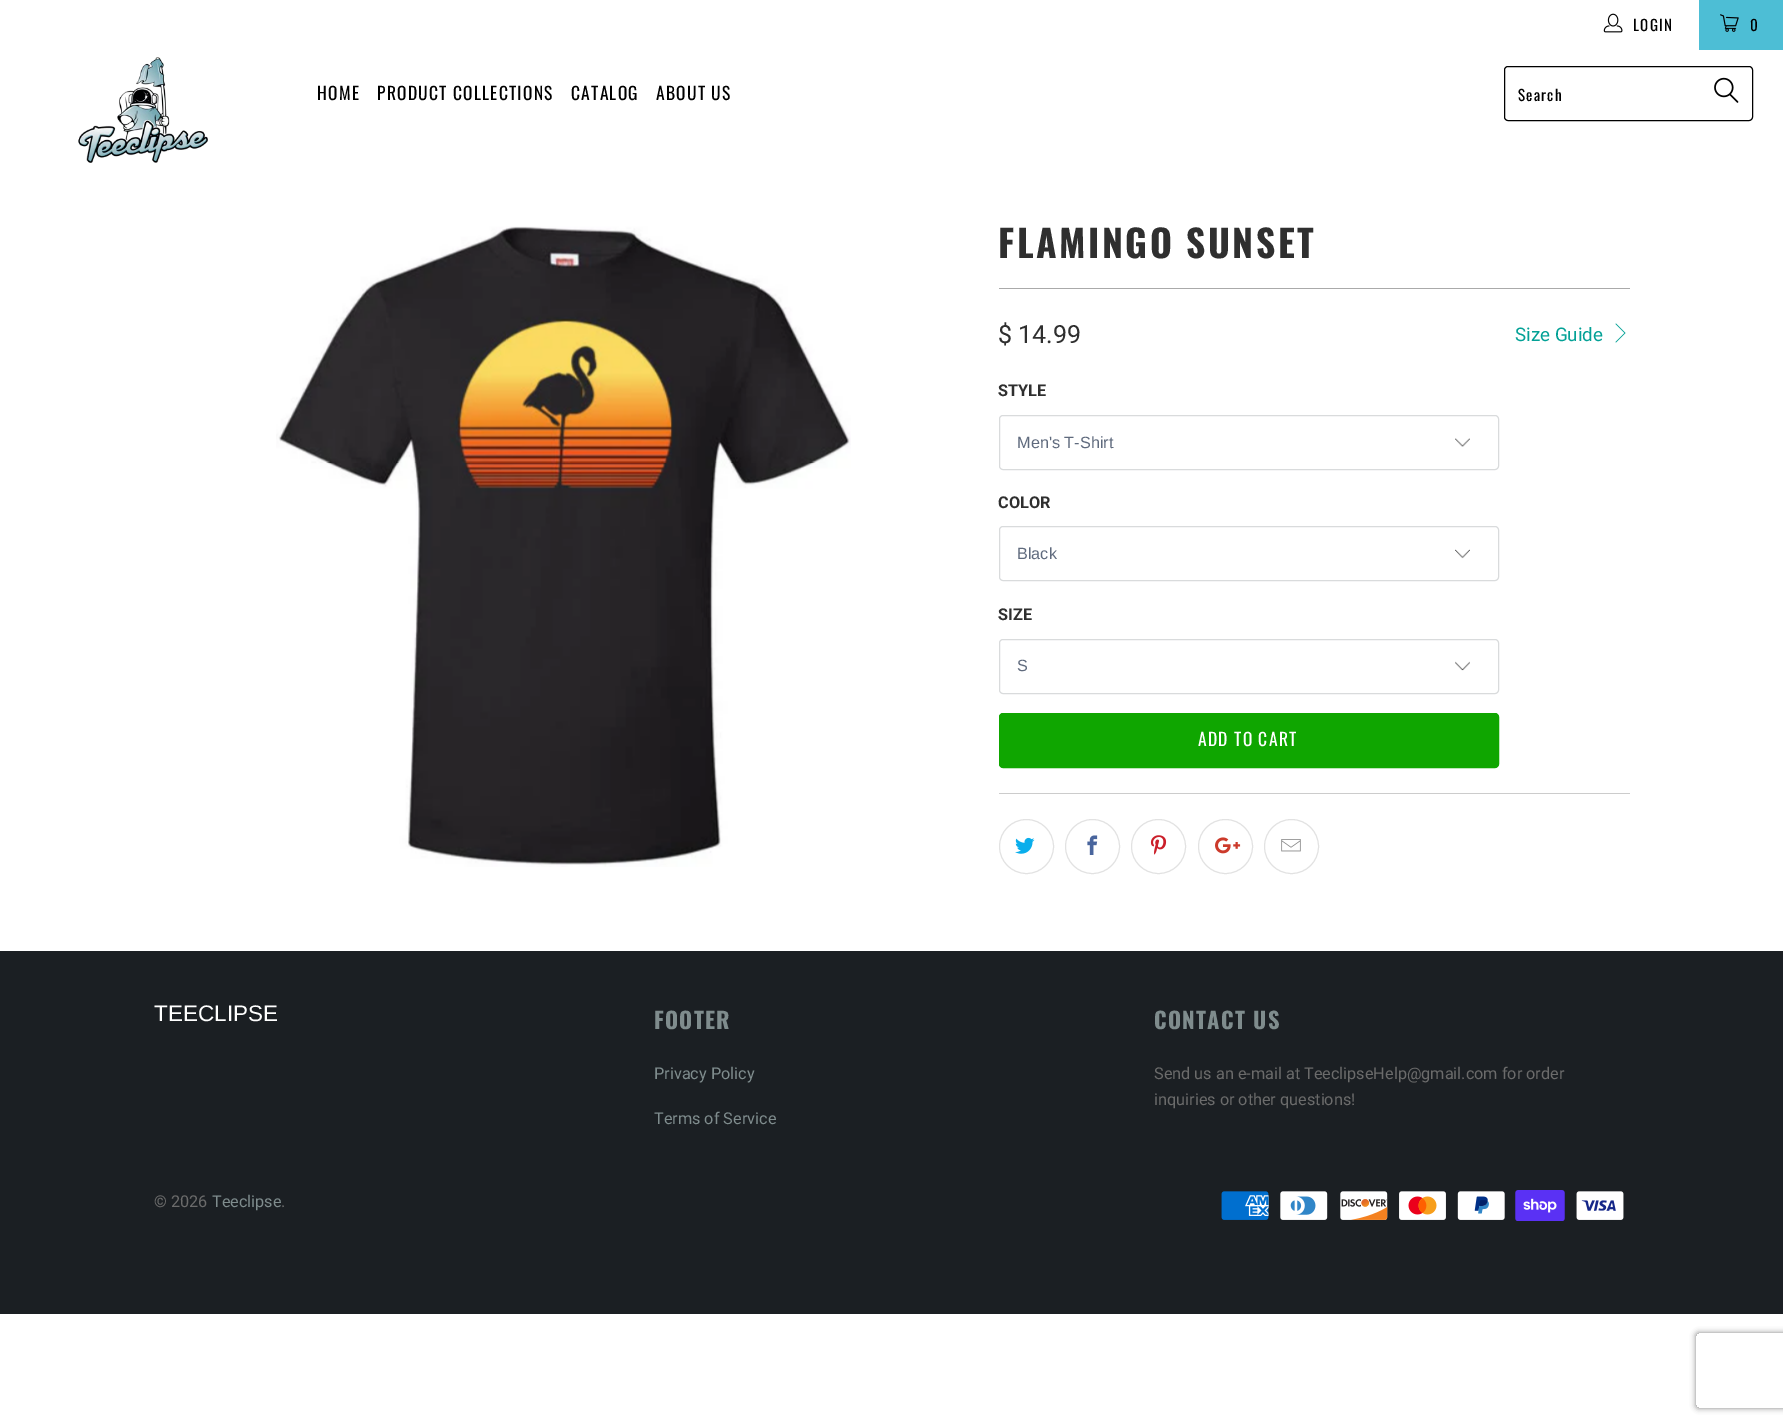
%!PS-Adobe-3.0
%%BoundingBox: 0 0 1783 1424
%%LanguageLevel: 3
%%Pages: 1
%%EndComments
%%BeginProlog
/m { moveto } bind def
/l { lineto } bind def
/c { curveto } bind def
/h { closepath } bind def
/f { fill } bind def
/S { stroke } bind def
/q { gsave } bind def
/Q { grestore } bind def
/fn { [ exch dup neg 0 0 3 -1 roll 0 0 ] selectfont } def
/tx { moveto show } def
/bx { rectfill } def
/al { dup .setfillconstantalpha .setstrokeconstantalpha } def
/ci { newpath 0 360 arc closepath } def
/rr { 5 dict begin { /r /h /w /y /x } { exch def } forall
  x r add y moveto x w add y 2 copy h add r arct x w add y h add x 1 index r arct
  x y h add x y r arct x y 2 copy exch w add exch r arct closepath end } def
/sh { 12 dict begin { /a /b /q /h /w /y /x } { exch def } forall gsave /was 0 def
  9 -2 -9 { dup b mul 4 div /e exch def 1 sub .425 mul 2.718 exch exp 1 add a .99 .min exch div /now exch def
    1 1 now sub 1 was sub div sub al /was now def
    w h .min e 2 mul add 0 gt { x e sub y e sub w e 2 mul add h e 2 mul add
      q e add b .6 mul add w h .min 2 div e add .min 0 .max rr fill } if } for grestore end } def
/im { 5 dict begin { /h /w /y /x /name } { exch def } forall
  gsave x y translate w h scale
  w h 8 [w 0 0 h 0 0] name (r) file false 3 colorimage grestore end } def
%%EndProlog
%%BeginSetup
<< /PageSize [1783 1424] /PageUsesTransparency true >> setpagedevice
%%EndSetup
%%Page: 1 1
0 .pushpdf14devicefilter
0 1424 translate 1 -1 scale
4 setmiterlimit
1 setgray
0 0 1783 1424 bx
(image0.raw) 1603 13 20 20 im
/Oswald-Regular 15 fn
0 setgray
1633 31 m 1.25 0 (LOGIN) ashow
0.302 0.745 0.835 setrgbcolor
1699 0 84 50 bx
(image1.raw) 1720 14 19 18 im
0 setgray
1750 31 m 1.25 0 (0) ashow
(image2.raw) 78 57 130 106 im
/Oswald-Regular 17.5 fn
317 100 m 1.25 0 (HOME) ashow
377 100 m 1.25 0 (PRODUCT COLLECTIONS) ashow
571 100 m 1.25 0 (CATALOG) ashow
656 100 m 1.25 0 (ABOUT US) ashow
1504.5 66.5 248 54 3.5 rr S
/Oswald-Regular 15 fn
1518 101 m 1.25 0 (Search) ashow
(image3.raw) 1714 77 25 26 im
(image4.raw) 276 226 575 641 im
/Oswald-Bold 37.5 fn
0.184 setgray
998 258 m 2.5 0 (FLAMINGO SUNSET) ashow
0.667 setgray
999 288 631 1 bx
/Roboto-Regular 25 fn
0.184 setgray
($ 14.99) 998 343 tx
/Roboto-Regular 18.75 fn
0.012 0.631 0.588 setrgbcolor
(Size Guide) 1515 341 tx
1616 342.5 m 1615.5 342 l 1624.5 333 l 1615.5 324 l 1616 323.5 l 1625.5 333 l h f
/Roboto-Bold 16.25 fn
0.184 setgray
(STYLE) 998 396 tx
(image5.raw) 1455 438 15 9 im
0.851 0.859 0.863 setrgbcolor
999.5 415.5 499 54 3.5 rr S
/LiberationSans-Regular 16.25 fn
0.373 0.416 0.49 setrgbcolor
(Men's T-Shirt) 1017 448 tx
/Roboto-Bold 16.25 fn
0.184 setgray
(COLOR) 998 508 tx
(image6.raw) 1455 549 15 10 im
0.851 0.859 0.863 setrgbcolor
999.5 526.5 499 54 3.5 rr S
/LiberationSans-Regular 16.25 fn
0.373 0.416 0.49 setrgbcolor
(Black) 1017 559 tx
/Roboto-Bold 16.25 fn
0.184 setgray
(SIZE) 998 620 tx
(image7.raw) 1455 661 15 10 im
0.851 0.859 0.863 setrgbcolor
999.5 639.5 499 54 3.5 rr S
/LiberationSans-Regular 16.25 fn
0.373 0.416 0.49 setrgbcolor
(S) 1017 671 tx
0.059 0.651 0 setrgbcolor
999.5 713.5 499 54 3.5 rr q f Q
S
/Oswald-Regular 17.5 fn
1 setgray
1198 746 m 1.25 0 (ADD TO CART) ashow
0.8 setgray
999 793 631 1 bx
0.886 setgray
1026.5 846.5 27 ci S
(image8.raw) 1015 837 20 17 im
1092.5 846.5 27 ci S
(image9.raw) 1087 835 11 20 im
1158.5 846.5 27 ci S
(image10.raw) 1150 835 17 20 im
1225.5 846.5 27 ci S
(image11.raw) 1215 837 26 17 im
1291.5 846.5 27 ci S
(image12.raw) 1281 839 20 13 im
0.106 0.122 0.137 setrgbcolor
0 951 1783 363 bx
/LiberationSans-Regular 22.5 fn
1 setgray
(TEECLIPSE) 154 1021 tx
/Oswald-Bold 22.5 fn
0.498 0.549 0.553 setrgbcolor
654 1029 m 1.25 0 (FOOTER) ashow
/Roboto-Regular 16.25 fn
(Privacy Policy) 654 1079 tx
(Terms of Service) 654 1124 tx
/Oswald-Bold 22.5 fn
1154 1029 m 1.25 0 (CONTACT US) ashow
/Roboto-Regular 16.25 fn
0.42 setgray
(Send us an e-mail at TeeclipseHelp@gmail.com for order) 1154 1079 tx
(inquiries or other questions!) 1154 1105 tx
(© 2026) 154 1207 tx
0.498 0.549 0.553 setrgbcolor
(Teeclipse) 212 1207 tx
0.42 setgray
(.) 281 1207 tx
(image13.raw) 1221 1191 48 29 im
(image14.raw) 1280 1191 48 29 im
(image15.raw) 1340 1191 48 29 im
(image16.raw) 1399 1191 47 29 im
(image17.raw) 1457 1191 48 29 im
(image18.raw) 1515 1190 50 31 im
(image19.raw) 1576 1191 48 29 im
q
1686 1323 m 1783 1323 l 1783 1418 l 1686 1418 l h 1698.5 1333 m 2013.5 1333 l 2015 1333 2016 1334 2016 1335.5 c 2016 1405.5 l 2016 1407 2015 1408 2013.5 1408 c 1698.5 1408 l 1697 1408 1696 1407 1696 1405.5 c 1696 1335.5 l 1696 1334 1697 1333 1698.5 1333 c h eoclip newpath
0.502 setgray
1696 1333 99 75 2.5 3 1 sh
Q
.poppdf14devicefilter showpage
%%EOF
